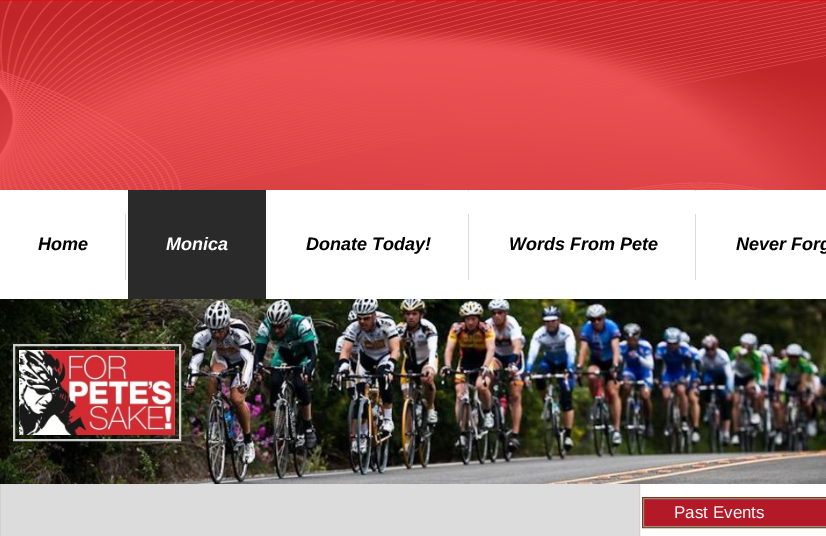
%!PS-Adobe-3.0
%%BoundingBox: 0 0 826 536
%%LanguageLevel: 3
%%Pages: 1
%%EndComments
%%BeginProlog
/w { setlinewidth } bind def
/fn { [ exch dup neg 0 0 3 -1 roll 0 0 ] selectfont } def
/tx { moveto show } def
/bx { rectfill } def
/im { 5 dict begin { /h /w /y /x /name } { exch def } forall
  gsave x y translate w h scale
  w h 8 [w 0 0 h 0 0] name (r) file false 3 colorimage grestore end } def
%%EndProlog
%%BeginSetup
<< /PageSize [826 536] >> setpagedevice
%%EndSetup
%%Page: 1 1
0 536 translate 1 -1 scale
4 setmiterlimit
1 setgray
0 0 826 536 bx
(image0.raw) 0 0 826 190 im
(image1.raw) 125 190 1 90 im
/LiberationSans-BoldItalic 18 fn
0 setgray
(Home) 38 250 tx
0.165 setgray
128 190 138 109 bx
1 setgray
(Monica) 166 250 tx
(image1.raw) 468 190 1 90 im
0 setgray
(Donate Today!) 306 250 tx
(image1.raw) 695 190 1 90 im
(Words From Pete) 509 250 tx
(Never Forg) 736 250 tx
(image2.raw) 0 299 826 185 im
0.8 setgray
2 w
14 345 166 95 rectstroke
(image3.raw) 19 350 156 85 im
(image4.raw) 0 484 826 52 im
0.706 0.098 0.153 setrgbcolor
644 499 182 27 bx
0.51 0.224 0.039 setrgbcolor
1 w
642.5 497.5 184 30 rectstroke
0.557 setgray
643.5 498.5 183 28 rectstroke
/LiberationSans-Regular 17 fn
1 setgray
(Past Events) 674 518 tx
showpage
%%EOF
